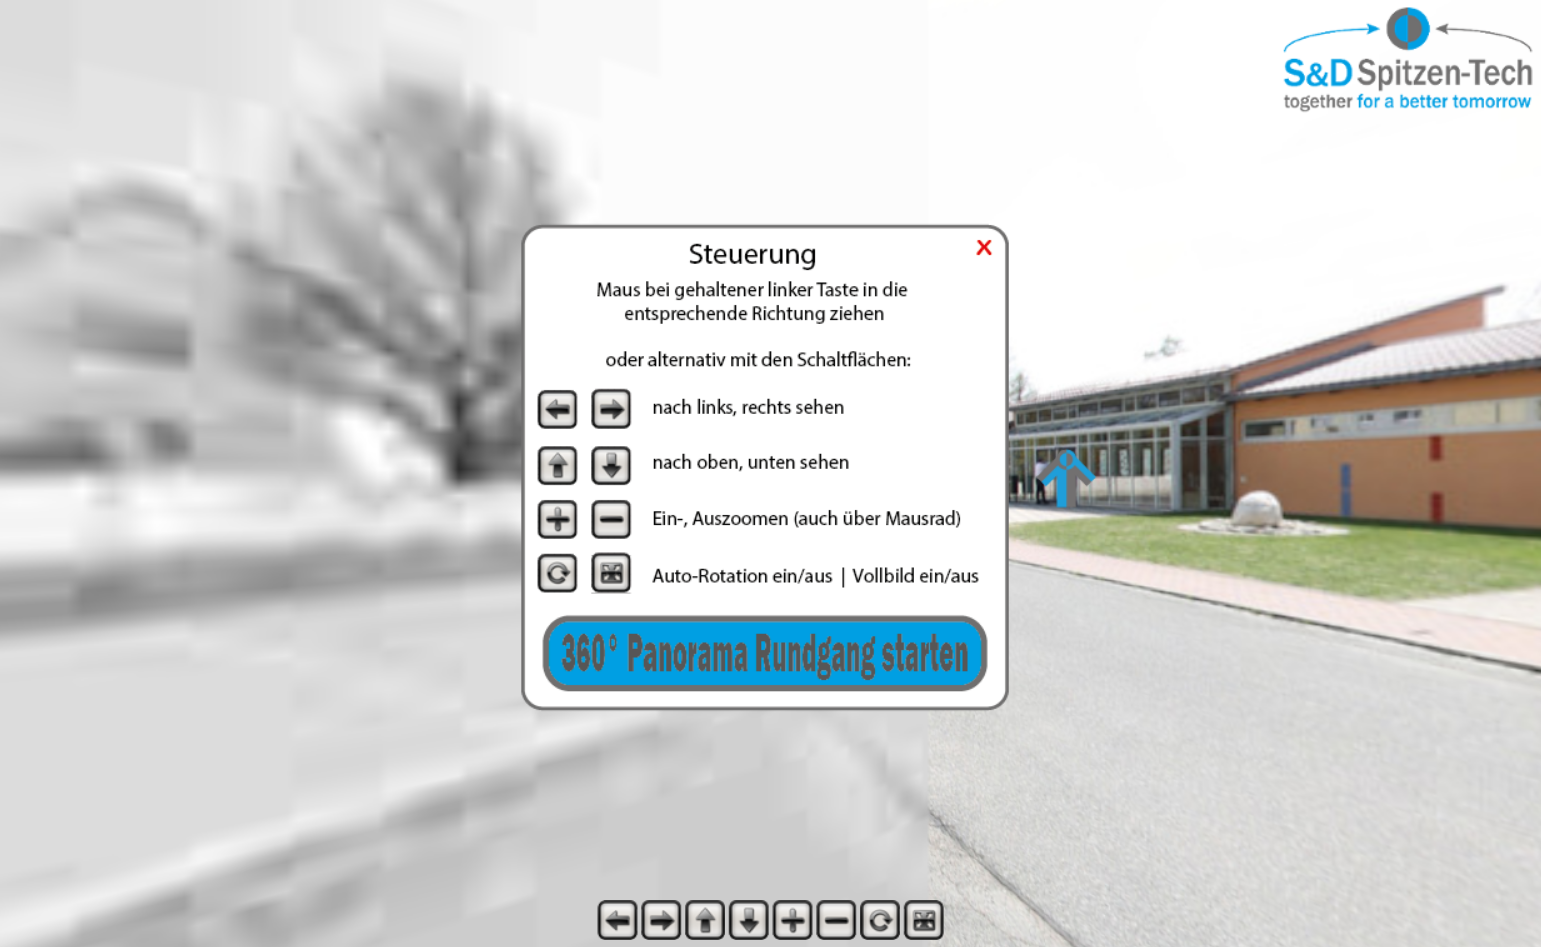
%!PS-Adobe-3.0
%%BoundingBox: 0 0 1541 947
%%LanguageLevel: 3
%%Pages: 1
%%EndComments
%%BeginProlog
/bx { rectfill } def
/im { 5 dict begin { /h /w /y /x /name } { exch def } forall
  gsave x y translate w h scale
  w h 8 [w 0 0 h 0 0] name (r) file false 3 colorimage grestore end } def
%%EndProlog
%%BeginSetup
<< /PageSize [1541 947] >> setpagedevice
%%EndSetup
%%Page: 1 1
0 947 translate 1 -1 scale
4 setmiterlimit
1 setgray
0 0 1541 947 bx
(image0.raw) 0 0 1541 947 im
(image1.raw) 1283 7 250 106 im
(image2.raw) 521 223 488 489 im
(image3.raw) 1036 448 61 60 im
(image4.raw) 597 900 41 40 im
(image5.raw) 641 900 41 40 im
(image6.raw) 685 900 40 40 im
(image7.raw) 728 900 41 40 im
(image8.raw) 772 900 41 40 im
(image9.raw) 816 900 41 40 im
(image10.raw) 860 900 40 40 im
(image11.raw) 903 900 41 40 im
showpage
%%EOF
